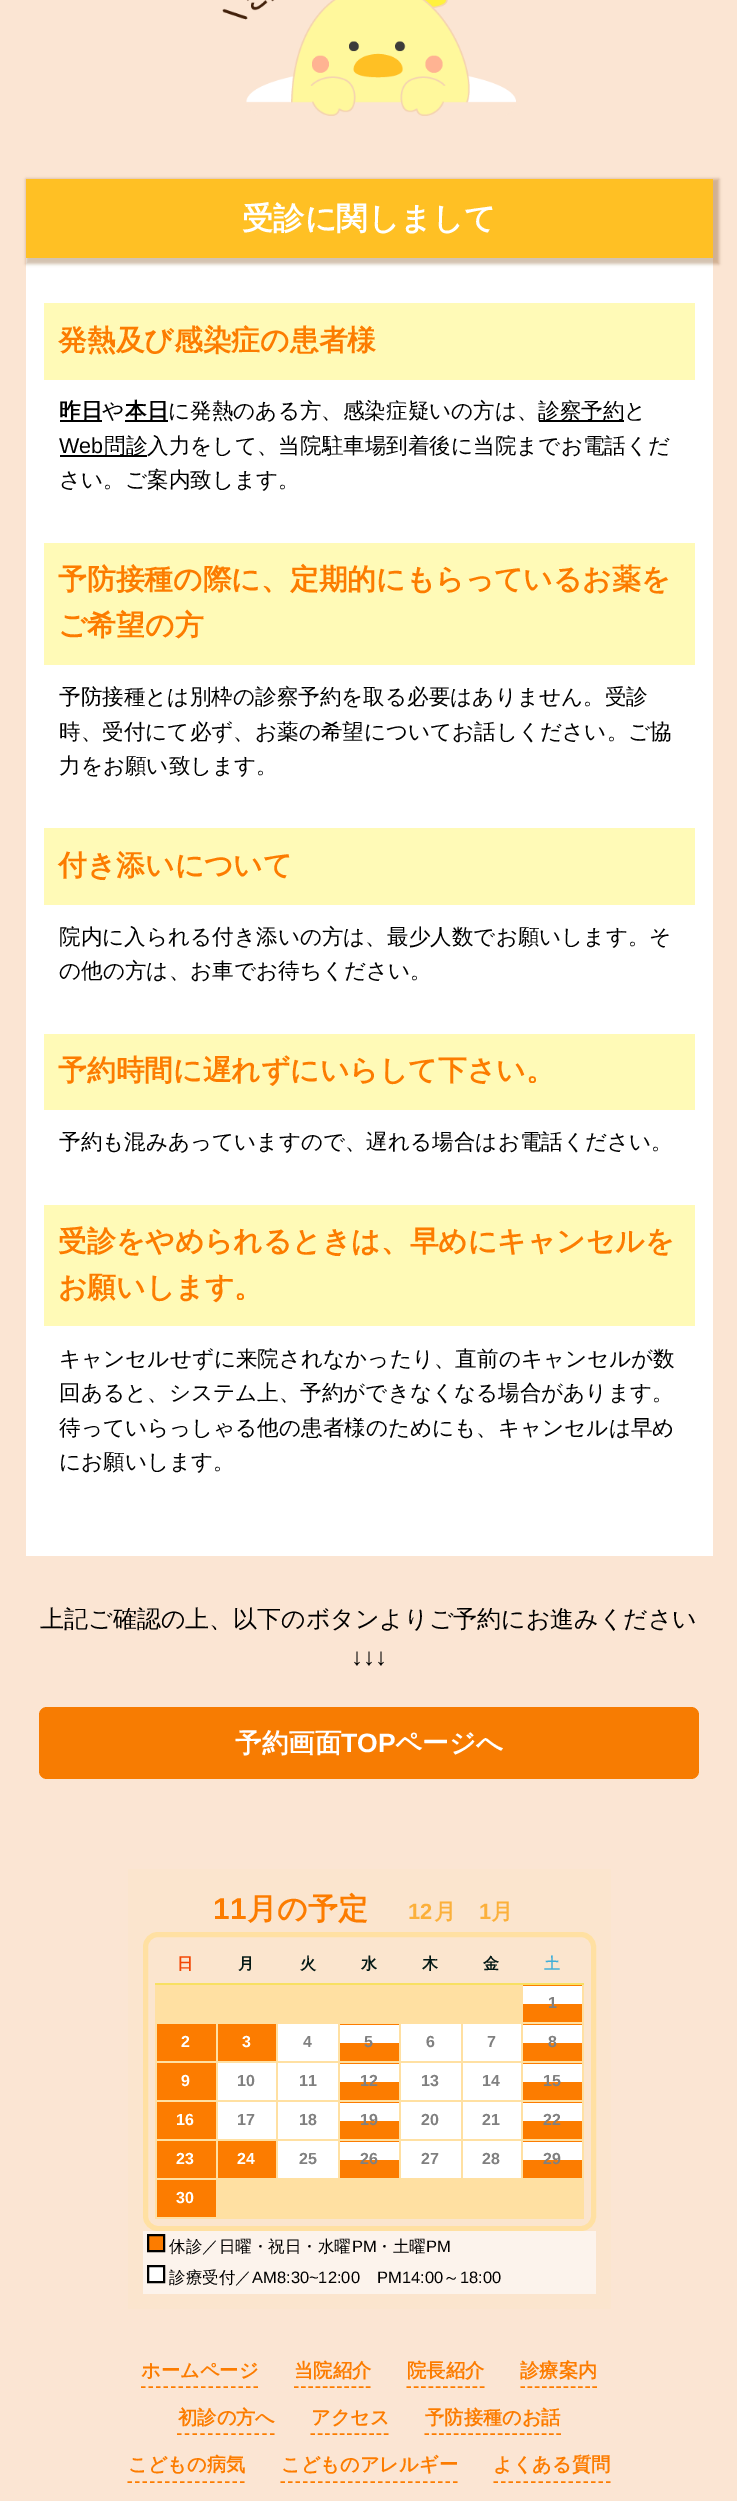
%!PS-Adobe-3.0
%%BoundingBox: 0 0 737 2501
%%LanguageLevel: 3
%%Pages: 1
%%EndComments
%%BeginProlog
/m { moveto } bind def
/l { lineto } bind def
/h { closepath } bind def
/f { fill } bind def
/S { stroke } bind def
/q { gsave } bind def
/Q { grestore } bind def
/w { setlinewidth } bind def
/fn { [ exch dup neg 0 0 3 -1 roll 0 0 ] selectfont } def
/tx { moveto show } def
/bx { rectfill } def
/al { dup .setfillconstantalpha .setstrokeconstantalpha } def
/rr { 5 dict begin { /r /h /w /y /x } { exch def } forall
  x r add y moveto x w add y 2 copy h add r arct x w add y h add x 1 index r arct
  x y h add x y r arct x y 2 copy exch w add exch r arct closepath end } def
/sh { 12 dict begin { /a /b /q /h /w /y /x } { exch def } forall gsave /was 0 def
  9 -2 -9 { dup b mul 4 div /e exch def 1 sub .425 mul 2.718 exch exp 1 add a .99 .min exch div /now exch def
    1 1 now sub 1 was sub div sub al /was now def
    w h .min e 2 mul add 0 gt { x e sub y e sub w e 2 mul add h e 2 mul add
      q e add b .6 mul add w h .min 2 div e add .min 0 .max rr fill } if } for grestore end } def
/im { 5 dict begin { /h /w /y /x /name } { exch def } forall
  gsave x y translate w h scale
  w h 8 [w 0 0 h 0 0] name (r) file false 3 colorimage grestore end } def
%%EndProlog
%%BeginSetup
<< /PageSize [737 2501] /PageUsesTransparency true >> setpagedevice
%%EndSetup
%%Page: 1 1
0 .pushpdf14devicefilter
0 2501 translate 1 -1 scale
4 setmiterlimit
0.984 0.898 0.827 setrgbcolor
0 0 737 2501 bx
(image0.raw) 222 0 294 116 im
1 setgray
26 258 687 1298 bx
0.451 0.22 0 setrgbcolor
26 179 693 85 0 1.5 0.31 sh
1 0.753 0.141 setrgbcolor
26 179 687 79 bx
/WenQuanYiZenHei-Bold 31.25 fn
1 setgray
(受診に関しまして) 242 229 tx
1 0.98 0.718 setrgbcolor
44 303 651 77 bx
/WenQuanYiZenHei-Bold 28.8 fn
0.988 0.486 0 setrgbcolor
(発熱及び感染症の患者様) 58 350 tx
0 setgray
60 420 42 2 bx
/WenQuanYiZenHei-Bold 21.6 fn
(昨日) 59 418 tx
/WenQuanYiZenHei-Medium 21.6 fn
(や) 102 418 tx
125 420 43 2 bx
/WenQuanYiZenHei-Bold 21.6 fn
(本日) 125 418 tx
/WenQuanYiZenHei-Medium 21.6 fn
(に発熱のある方、感染症疑いの方は、) 168 418 tx
539 420 85 2 bx
(診察予約と) 538 418 tx
/LiberationSans-Regular 21.6 fn
(Web) 59 453 tx
60 455 87 2 bx
/WenQuanYiZenHei-Medium 21.6 fn
(問診入力をして、当院駐車場到着後に当院までお電話くだ) 104 453 tx
(さい。ご案内致します。) 59 487 tx
1 0.98 0.718 setrgbcolor
44 543 651 122 bx
/WenQuanYiZenHei-Bold 28.8 fn
0.988 0.486 0 setrgbcolor
(予防接種の際に、定期的にもらっているお薬を) 58 589 tx
(ご希望の方) 58 635 tx
/WenQuanYiZenHei-Medium 21.6 fn
0 setgray
(予防接種とは別枠の診察予約を取る必要はありません。受診) 59 704 tx
(時、受付にて必ず、お薬の希望についてお話しください。ご協) 59 739 tx
(力をお願い致します。) 59 773 tx
1 0.98 0.718 setrgbcolor
44 828 651 77 bx
/WenQuanYiZenHei-Bold 28.8 fn
0.988 0.486 0 setrgbcolor
(付き添いについて) 58 875 tx
/WenQuanYiZenHei-Medium 21.6 fn
0 setgray
(院内に入られる付き添いの方は、最少人数でお願いします。そ) 59 944 tx
(の他の方は、お車でお待ちください。) 59 978 tx
1 0.98 0.718 setrgbcolor
44 1034 651 76 bx
/WenQuanYiZenHei-Bold 28.8 fn
0.988 0.486 0 setrgbcolor
(予約時間に遅れずにいらして下さい。) 58 1080 tx
/WenQuanYiZenHei-Medium 21.6 fn
0 setgray
(予約も混みあっていますので、遅れる場合はお電話ください。) 59 1149 tx
1 0.98 0.718 setrgbcolor
44 1205 651 121 bx
/WenQuanYiZenHei-Bold 28.8 fn
0.988 0.486 0 setrgbcolor
(受診をやめられるときは、早めにキャンセルを) 58 1251 tx
(お願いします。) 58 1297 tx
/WenQuanYiZenHei-Medium 21.6 fn
0 setgray
(キャンセルせずに来院されなかったり、直前のキャンセルが数) 59 1366 tx
(回あると、システム上、予約ができなくなる場合があります。) 59 1400 tx
(待っていらっしゃる他の患者様のためにも、キャンセルは早め) 59 1435 tx
(にお願いします。) 59 1469 tx
/WenQuanYiZenHei-Medium 24 fn
(上記ご確認の上、以下のボタンよりご予約にお進みください) 40 1627 tx
/LiberationSans-Regular 24 fn
(↓↓↓) 351 1665 tx
0.969 0.486 0.008 setrgbcolor
39 1707 660 72 8 rr f
/WenQuanYiZenHei-Bold 26.5 fn
1 setgray
(予約画面) 235 1752 tx
/LiberationSans-Bold 26.5 fn
(TOP) 341 1752 tx
/WenQuanYiZenHei-Bold 26.5 fn
(ページへ) 395 1752 tx
0.984 0.898 0.808 setrgbcolor
128 1869 483 440 bx
/LiberationSans-Bold 30 fn
0.988 0.486 0 setrgbcolor
(11) 213 1919 tx
/WenQuanYiZenHei-Bold 30 fn
(月の予定) 247 1919 tx
/LiberationSans-Bold 22 fn
0.984 0.69 0.231 setrgbcolor
(12) 408 1919 tx
/WenQuanYiZenHei-Bold 22 fn
(月) 434 1919 tx
/LiberationSans-Bold 22 fn
(1) 479 1919 tx
/WenQuanYiZenHei-Bold 22 fn
(月) 491 1919 tx
1 0.878 0.635 setrgbcolor
5 w
145.5 1934.5 448 294 12.5 rr S
/WenQuanYiZenHei-Bold 16 fn
0.953 0.275 0.012 setrgbcolor
(日) 177 1969 tx
0.012 0.094 0.082 setrgbcolor
(月) 238 1969 tx
(火) 300 1969 tx
(水) 361 1969 tx
(木) 422 1969 tx
(金) 483 1969 tx
0.988 0.486 0 setrgbcolor
522 1985 62 1 bx
522 2024 62 1 bx
1 0.878 0.635 setrgbcolor
521 2022 63 2 bx
521 2061 63 2 bx
0.988 0.486 0 setrgbcolor
522 2063 62 1 bx
1 0.878 0.635 setrgbcolor
521 2100 63 2 bx
0.988 0.486 0 setrgbcolor
522 2102 62 1 bx
1 0.878 0.635 setrgbcolor
521 2139 63 2 bx
0.988 0.486 0 setrgbcolor
522 2141 62 1 bx
1 0.878 0.635 setrgbcolor
155 2178 429 2 bx
582 2139 2 41 bx
582 2100 2 41 bx
582 2061 2 41 bx
582 1983 2 80 bx
521 2139 2 41 bx
461 2139 61 2 bx
521 2100 2 41 bx
461 2100 61 2 bx
521 2061 2 41 bx
461 2061 61 2 bx
521 1983 2 80 bx
0.973 0.878 0.384 setrgbcolor
155 1983 429 2 bx
0.251 0.682 0.847 setrgbcolor
(土) 544 1969 tx
1 0.878 0.635 setrgbcolor
155 1985 366 39 bx
1 setgray
523 1986 59 18 bx
0.988 0.486 0 setrgbcolor
523 2004 59 18 bx
/LiberationSans-Bold 16 fn
0.502 setgray
(1) 548 2008 tx
0.988 0.486 0 setrgbcolor
157 2024 59 37 bx
1 setgray
(2) 181 2047 tx
0.988 0.486 0 setrgbcolor
218 2024 58 37 bx
1 0.878 0.635 setrgbcolor
461 2139 2 41 bx
399 2139 63 2 bx
461 2100 2 41 bx
399 2100 63 2 bx
461 2061 2 41 bx
399 2061 63 2 bx
399 2139 2 41 bx
338 2139 63 2 bx
399 2100 2 41 bx
338 2100 63 2 bx
399 2061 2 41 bx
338 2061 63 2 bx
0.988 0.486 0 setrgbcolor
339 2063 60 1 bx
339 2102 60 1 bx
339 2141 60 1 bx
1 0.878 0.635 setrgbcolor
338 2139 2 41 bx
276 2139 63 2 bx
338 2100 2 41 bx
276 2100 63 2 bx
338 2061 2 41 bx
276 2061 63 2 bx
276 2139 2 41 bx
216 2139 62 2 bx
276 2100 2 41 bx
216 2100 62 2 bx
276 2061 2 41 bx
216 2061 62 2 bx
216 2139 2 41 bx
155 2139 63 2 bx
216 2100 2 41 bx
155 2100 63 2 bx
216 2061 2 41 bx
155 2061 63 2 bx
216 2022 2 41 bx
1 setgray
(3) 242 2047 tx
278 2024 60 37 bx
1 0.878 0.635 setrgbcolor
276 2022 2 41 bx
0.502 setgray
(4) 303 2047 tx
0.988 0.486 0 setrgbcolor
339 2024 60 1 bx
1 setgray
340 2025 59 18 bx
0.988 0.486 0 setrgbcolor
340 2043 59 18 bx
1 0.878 0.635 setrgbcolor
338 2022 2 41 bx
0.502 setgray
(5) 364 2047 tx
1 setgray
401 2024 60 37 bx
1 0.878 0.635 setrgbcolor
399 2022 2 41 bx
0.502 setgray
(6) 426 2047 tx
1 setgray
463 2024 58 37 bx
1 0.878 0.635 setrgbcolor
461 2022 2 41 bx
0.502 setgray
(7) 487 2047 tx
1 setgray
523 2025 59 18 bx
0.988 0.486 0 setrgbcolor
523 2043 59 18 bx
0.502 setgray
(8) 548 2047 tx
0.988 0.486 0 setrgbcolor
157 2063 59 37 bx
1 0.878 0.635 setrgbcolor
216 2180 368 39 bx
155 2217 63 2 bx
155 2178 2 41 bx
155 2139 2 41 bx
155 2100 2 41 bx
155 2022 2 80 bx
1 setgray
(9) 181 2086 tx
218 2063 58 37 bx
0.502 setgray
(10) 237 2086 tx
1 setgray
278 2063 60 37 bx
0.502 setgray
(11) 299 2086 tx
1 setgray
340 2064 59 18 bx
0.988 0.486 0 setrgbcolor
340 2082 59 18 bx
0.502 setgray
(12) 360 2086 tx
1 setgray
401 2063 60 37 bx
0.502 setgray
(13) 421 2086 tx
1 setgray
463 2063 58 37 bx
0.502 setgray
(14) 482 2086 tx
1 setgray
523 2064 59 18 bx
0.988 0.486 0 setrgbcolor
523 2082 59 18 bx
0.502 setgray
(15) 543 2086 tx
0.988 0.486 0 setrgbcolor
157 2102 59 37 bx
1 setgray
(16) 176 2125 tx
218 2102 58 37 bx
0.502 setgray
(17) 237 2125 tx
1 setgray
278 2102 60 37 bx
0.502 setgray
(18) 299 2125 tx
1 setgray
340 2103 59 18 bx
0.988 0.486 0 setrgbcolor
340 2121 59 18 bx
0.502 setgray
(19) 360 2125 tx
1 setgray
401 2102 60 37 bx
0.502 setgray
(20) 421 2125 tx
1 setgray
463 2102 58 37 bx
0.502 setgray
(21) 482 2125 tx
1 setgray
523 2103 59 18 bx
0.988 0.486 0 setrgbcolor
523 2121 59 18 bx
0.502 setgray
(22) 543 2125 tx
0.988 0.486 0 setrgbcolor
157 2141 59 37 bx
1 setgray
(23) 176 2164 tx
0.988 0.486 0 setrgbcolor
218 2141 58 37 bx
1 setgray
(24) 237 2164 tx
278 2141 60 37 bx
0.502 setgray
(25) 299 2164 tx
1 setgray
340 2142 59 18 bx
0.988 0.486 0 setrgbcolor
340 2160 59 18 bx
0.502 setgray
(26) 360 2164 tx
1 setgray
401 2141 60 37 bx
0.502 setgray
(27) 421 2164 tx
1 setgray
463 2141 58 37 bx
0.502 setgray
(28) 482 2164 tx
1 setgray
523 2142 59 18 bx
0.988 0.486 0 setrgbcolor
523 2160 59 18 bx
0.502 setgray
(29) 543 2164 tx
0.988 0.486 0 setrgbcolor
157 2180 59 37 bx
1 setgray
(30) 176 2203 tx
0.988 0.953 0.925 setrgbcolor
143 2231 453 63 bx
0.988 0.486 0 setrgbcolor
148 2235 m 164 2235 l 164 2251 l 148 2251 l h q f Q
0 setgray
2 w
S
/WenQuanYiZenHei-Medium 16.5 fn
(休診／日曜・祝日・水曜) 169 2252 tx
/LiberationSans-Regular 16.5 fn
(PM) 352 2252 tx
/WenQuanYiZenHei-Medium 16.5 fn
(・土曜) 376 2252 tx
/LiberationSans-Regular 16.5 fn
(PM) 426 2252 tx
1 setgray
148 2266 m 164 2266 l 164 2282 l 148 2282 l h q f Q
0 setgray
S
/WenQuanYiZenHei-Medium 16.5 fn
(診療受付／) 169 2283 tx
/LiberationSans-Regular 16.5 fn
(AM8:30~12:00) 252 2283 tx
(PM14:00) 377 2283 tx
/WenQuanYiZenHei-Medium 16.5 fn
(～) 443 2283 tx
/LiberationSans-Regular 16.5 fn
(18:00) 460 2283 tx
0.988 0.486 0 setrgbcolor
1.5 w
[4.5 3] 0 setdash
141 2387 m 258 2387 l S
/WenQuanYiZenHei-Bold 19.25 fn
(ホームページ) 141 2377 tx
[4.5 2.7] 0 setdash
294 2387 m 370.5 2387 l S
(当院紹介) 294 2377 tx
[4.5 2.85] 0 setdash
406.5 2387 m 484.5 2387 l S
(院長紹介) 407 2377 tx
[4.5 2.7] 0 setdash
520.5 2387 m 597 2387 l S
(診療案内) 520 2377 tx
[4.5 3.25] 0 setdash
177 2434 m 274.5 2434 l S
(初診の方へ) 178 2424 tx
[4.5 2.85] 0 setdash
310.5 2434 m 388.5 2434 l S
(アクセス) 311 2424 tx
[4.5 2.83] 0 setdash
424.5 2434 m 561 2434 l S
(予防接種のお話) 425 2424 tx
[4.5 3] 0 setdash
127.5 2482 m 244.5 2482 l S
(こどもの病気) 128 2471 tx
280.5 2482 m 457.5 2482 l S
(こどものアレルギー) 281 2471 tx
493.5 2482 m 610.5 2482 l S
(よくある質問) 493 2471 tx
.poppdf14devicefilter showpage
%%EOF
